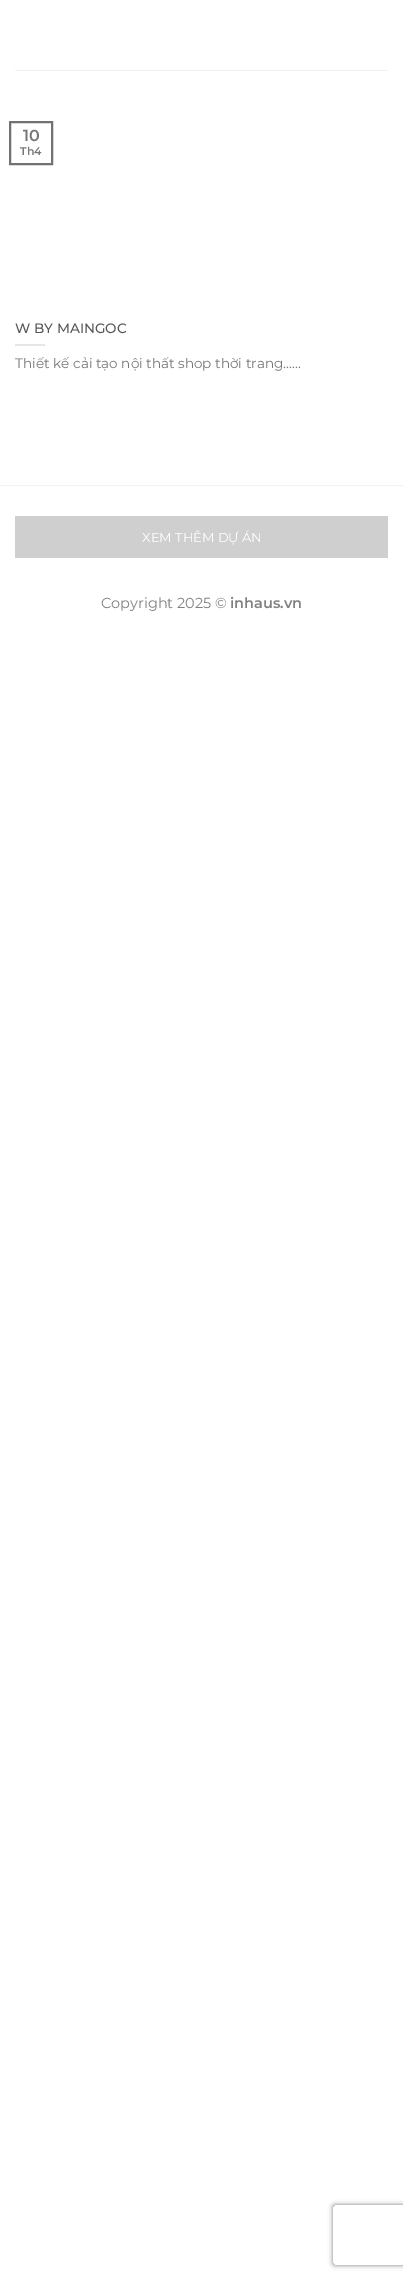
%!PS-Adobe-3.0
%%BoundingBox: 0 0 403 2279
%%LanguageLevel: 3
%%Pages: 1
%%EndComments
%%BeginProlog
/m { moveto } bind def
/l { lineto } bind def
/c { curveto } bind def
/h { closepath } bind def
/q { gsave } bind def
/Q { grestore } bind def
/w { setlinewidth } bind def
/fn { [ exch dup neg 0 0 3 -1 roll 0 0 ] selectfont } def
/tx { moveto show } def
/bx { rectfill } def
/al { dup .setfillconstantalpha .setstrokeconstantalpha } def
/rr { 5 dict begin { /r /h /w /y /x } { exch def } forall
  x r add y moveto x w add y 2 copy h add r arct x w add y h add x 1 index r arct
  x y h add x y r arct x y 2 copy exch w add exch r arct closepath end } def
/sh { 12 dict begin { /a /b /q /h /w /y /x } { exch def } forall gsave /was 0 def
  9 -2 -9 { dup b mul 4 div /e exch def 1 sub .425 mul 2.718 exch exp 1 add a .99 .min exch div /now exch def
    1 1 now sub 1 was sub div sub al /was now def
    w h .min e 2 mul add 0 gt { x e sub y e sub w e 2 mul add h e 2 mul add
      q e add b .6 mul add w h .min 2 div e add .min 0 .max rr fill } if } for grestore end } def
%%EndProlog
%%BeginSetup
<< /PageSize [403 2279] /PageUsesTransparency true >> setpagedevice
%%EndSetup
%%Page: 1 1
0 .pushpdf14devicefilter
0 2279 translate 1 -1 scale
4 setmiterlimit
1 setgray
0 0 403 2279 bx
0.945 setgray
15 70 373 1 bx
0.447 setgray
2 w
10 122 42 42 rectstroke
/Montserrat-SemiBold 16 fn
0.467 setgray
(10) 23 141 tx
/Montserrat-SemiBold 11 fn
(Th4) 20 155 tx
/Montserrat-Medium 13.6 fn
0.333 setgray
(W BY MAINGOC) 15 333 tx
0.902 setgray
15 344 30 2 bx
/Montserrat-Regular 13.6 fn
0.467 setgray
(Thiết kế cải tạo nội thất shop thời trang......) 15 368 tx
0.949 setgray
0 485 403 1 bx
0.812 setgray
15 516 373 42 bx
/Montserrat-Regular 13 fn
1 setgray
(XEM THÊM DỰ ÁN) 142 542 tx
/Montserrat-Regular 14.5 fn
0.502 setgray
(Copyright 2025 ©) 101 608 tx
/Montserrat-SemiBold 14.5 fn
(inhaus.vn) 230 608 tx
q
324 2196 m 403 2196 l 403 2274 l 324 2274 l h 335 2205 m 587 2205 l 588 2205 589 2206 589 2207 c 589 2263 l 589 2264 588 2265 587 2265 c 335 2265 l 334 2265 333 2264 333 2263 c 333 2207 l 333 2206 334 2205 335 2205 c h eoclip newpath
333 2205 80 60 2 2.5 1 sh
Q
.poppdf14devicefilter showpage
%%EOF
